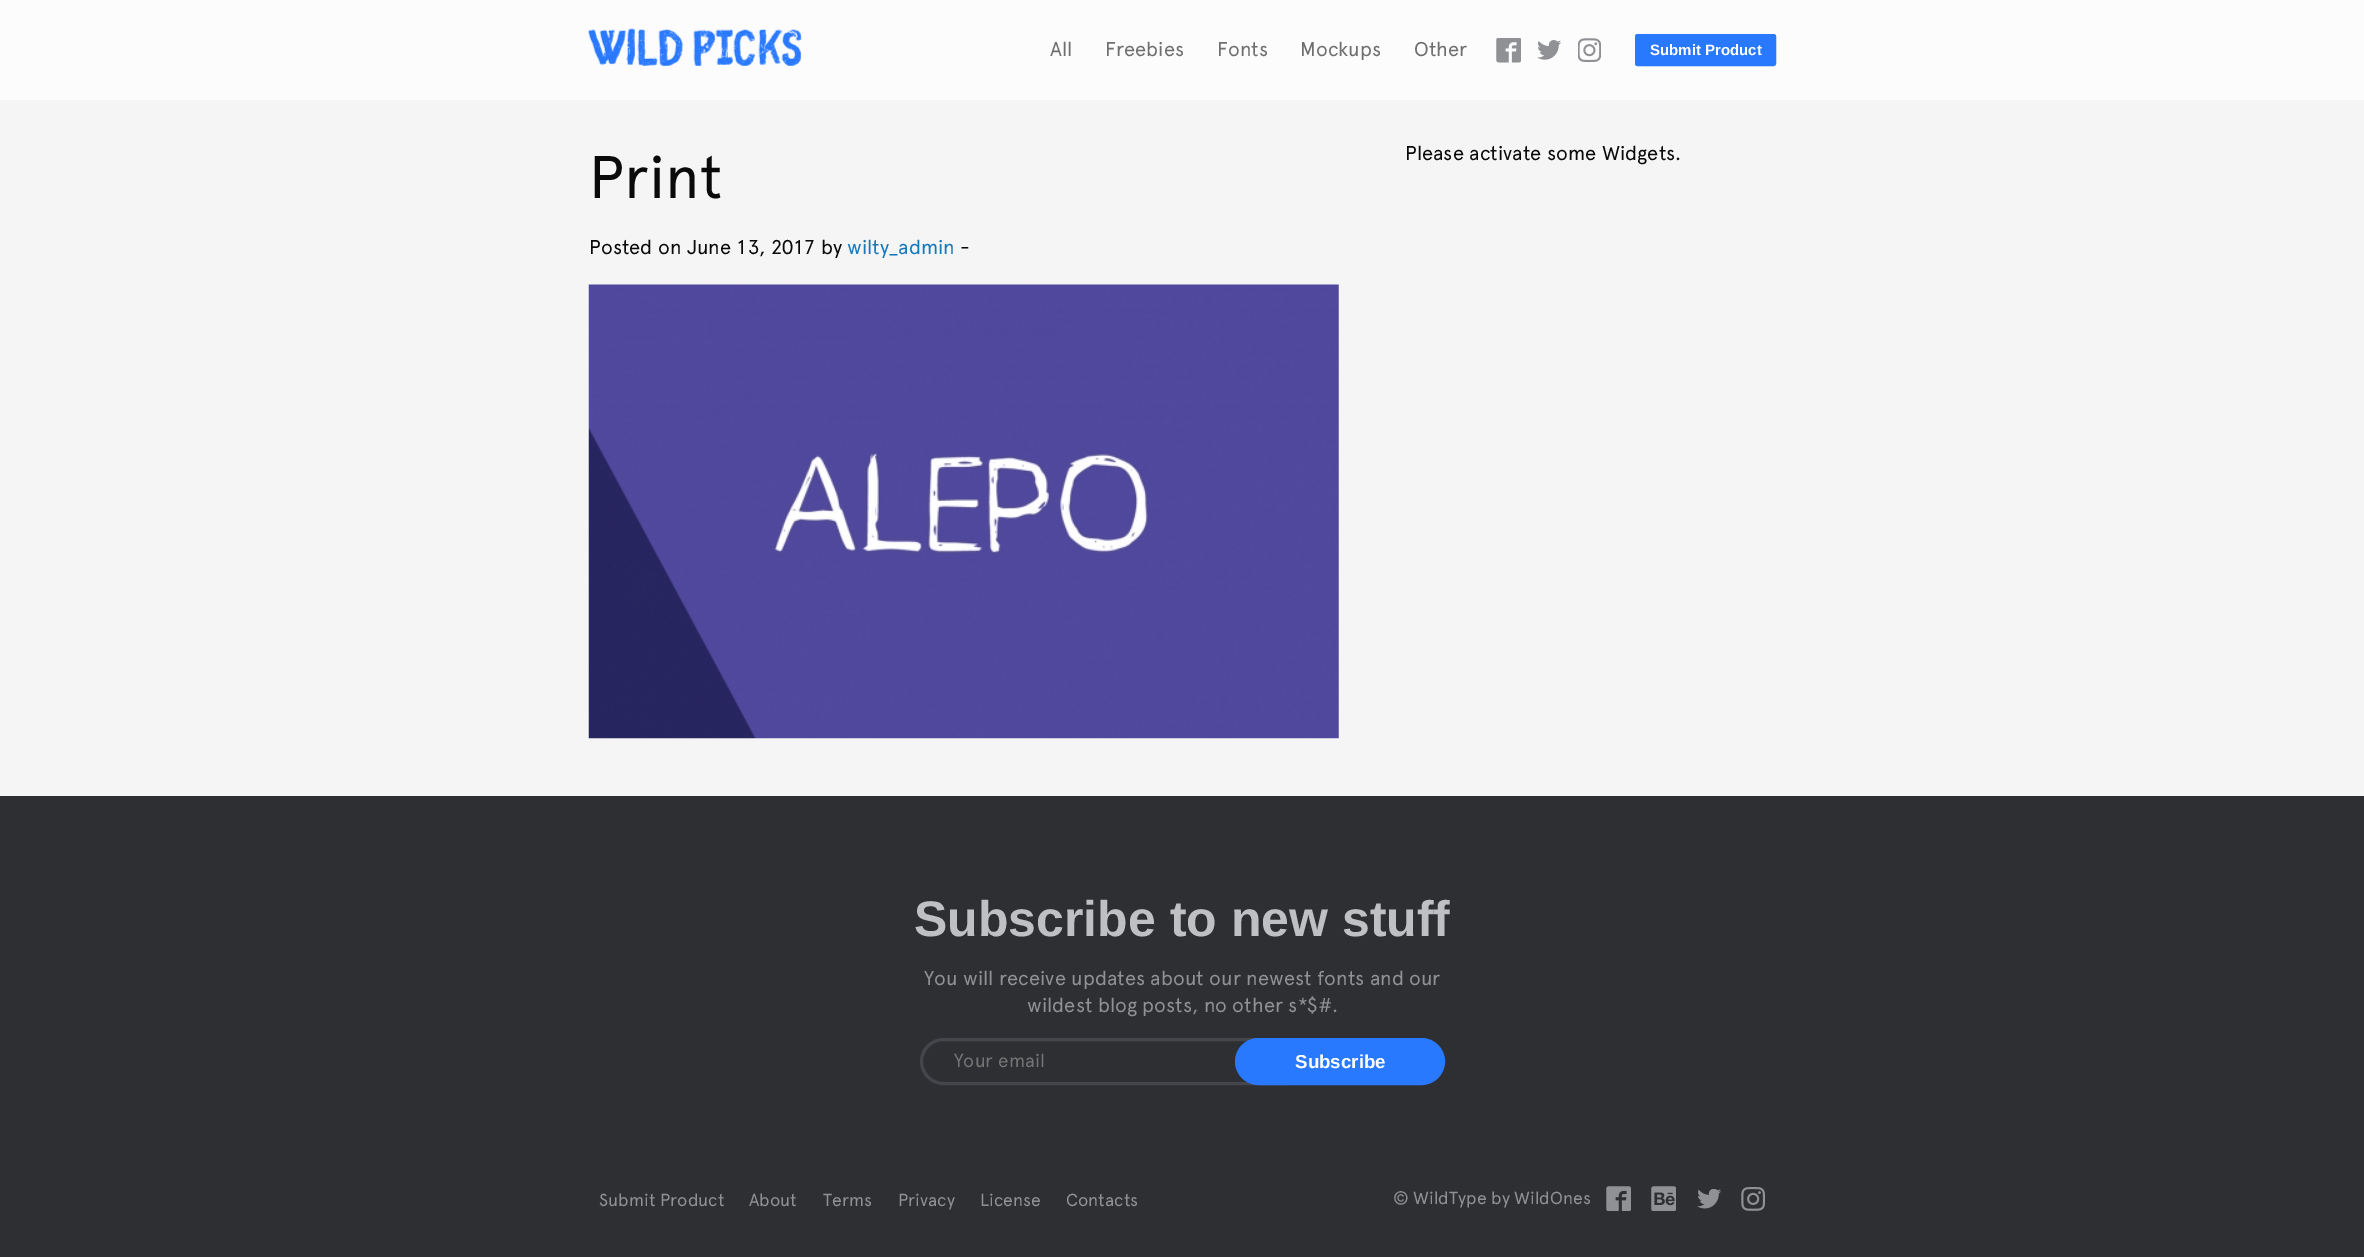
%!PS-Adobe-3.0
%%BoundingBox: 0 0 2364 1257
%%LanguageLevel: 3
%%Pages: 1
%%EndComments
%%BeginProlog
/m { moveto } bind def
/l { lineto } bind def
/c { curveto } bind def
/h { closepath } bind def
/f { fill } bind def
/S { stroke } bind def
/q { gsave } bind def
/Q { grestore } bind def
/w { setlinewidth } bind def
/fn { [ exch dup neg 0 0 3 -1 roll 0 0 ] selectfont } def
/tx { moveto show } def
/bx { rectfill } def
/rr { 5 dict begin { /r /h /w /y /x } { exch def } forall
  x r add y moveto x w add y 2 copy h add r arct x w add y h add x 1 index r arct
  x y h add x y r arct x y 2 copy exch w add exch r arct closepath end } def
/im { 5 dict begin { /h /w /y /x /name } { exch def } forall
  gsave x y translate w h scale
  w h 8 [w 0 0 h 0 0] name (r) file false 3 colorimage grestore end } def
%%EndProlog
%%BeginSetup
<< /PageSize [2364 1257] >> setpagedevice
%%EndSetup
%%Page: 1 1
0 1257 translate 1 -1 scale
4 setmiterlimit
0.961 setgray
0 0 2364 1257 bx
0.988 setgray
0 0 2364 100 bx
(image0.raw) 588 28 214 39 im
/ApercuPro-Regular 20 fn
0.435 0.435 0.443 setrgbcolor
(All) 1050 56 tx
(Freebies) 1105 56 tx
(Fonts) 1217 56 tx
(Mockups) 1300 56 tx
(Other) 1414 56 tx
(image1.raw) 1496 38 25 25 im
(image2.raw) 1537 40 24 20 im
(image3.raw) 1578 38 23 25 im
0.161 0.475 1 setrgbcolor
1636.5 35.5 138 29 1 rr q f Q
3 w
S
/LiberationSans-Bold 15 fn
1 setgray
(Submit Product) 1650 55 tx
/ApercuPro-Regular 60 fn
0.039 setgray
(Print) 589 198 tx
/ApercuPro-Regular 20 fn
(Posted on June 13, 2017 by) 589 254 tx
0.09 0.475 0.729 setrgbcolor
(wilty_admin) 847 254 tx
0.039 setgray
(-) 960 254 tx
(image4.raw) 588 284 751 455 im
(Please activate some Widgets.) 1405 160 tx
0.18 0.184 0.2 setrgbcolor
0 796 2364 461 bx
/LiberationSans-Bold 50 fn
0.749 0.753 0.769 setrgbcolor
(Subscribe to new stuff) 914 936 tx
/ApercuPro-Regular 20 fn
0.565 0.569 0.584 setrgbcolor
(You will receive updates about our newest fonts and our) 924 985 tx
(wildest blog posts, no other s*$#.) 1027 1012 tx
0.271 0.275 0.294 setrgbcolor
943.5 1039.5 m 1286.5 1039.5 l 1286.5 1083.5 l 943.5 1083.5 l 931.5 1083.5 921.5 1073.5 921.5 1061.5 c 921.5 1049.5 931.5 1039.5 943.5 1039.5 c h S
/ApercuPro-Regular 18.75 fn
0.459 setgray
(Your email) 954 1067 tx
0.161 0.475 1 setrgbcolor
1236.5 1039.5 207 44 22 rr q f Q
S
/LiberationSans-Bold 18.75 fn
1 setgray
(Subscribe) 1295 1068 tx
/ApercuPro-Regular 17.5 fn
0.565 0.569 0.584 setrgbcolor
(Submit Product) 599 1206 tx
(About) 749 1206 tx
(Terms) 823 1206 tx
(Privacy) 898 1206 tx
(License) 980 1206 tx
(Contacts) 1066 1206 tx
(© WildType by WildOnes) 1393 1204 tx
(image5.raw) 1606 1186 25 25 im
(image6.raw) 1651 1186 25 25 im
(image7.raw) 1697 1189 24 20 im
(image8.raw) 1741 1187 25 24 im
showpage
%%EOF
